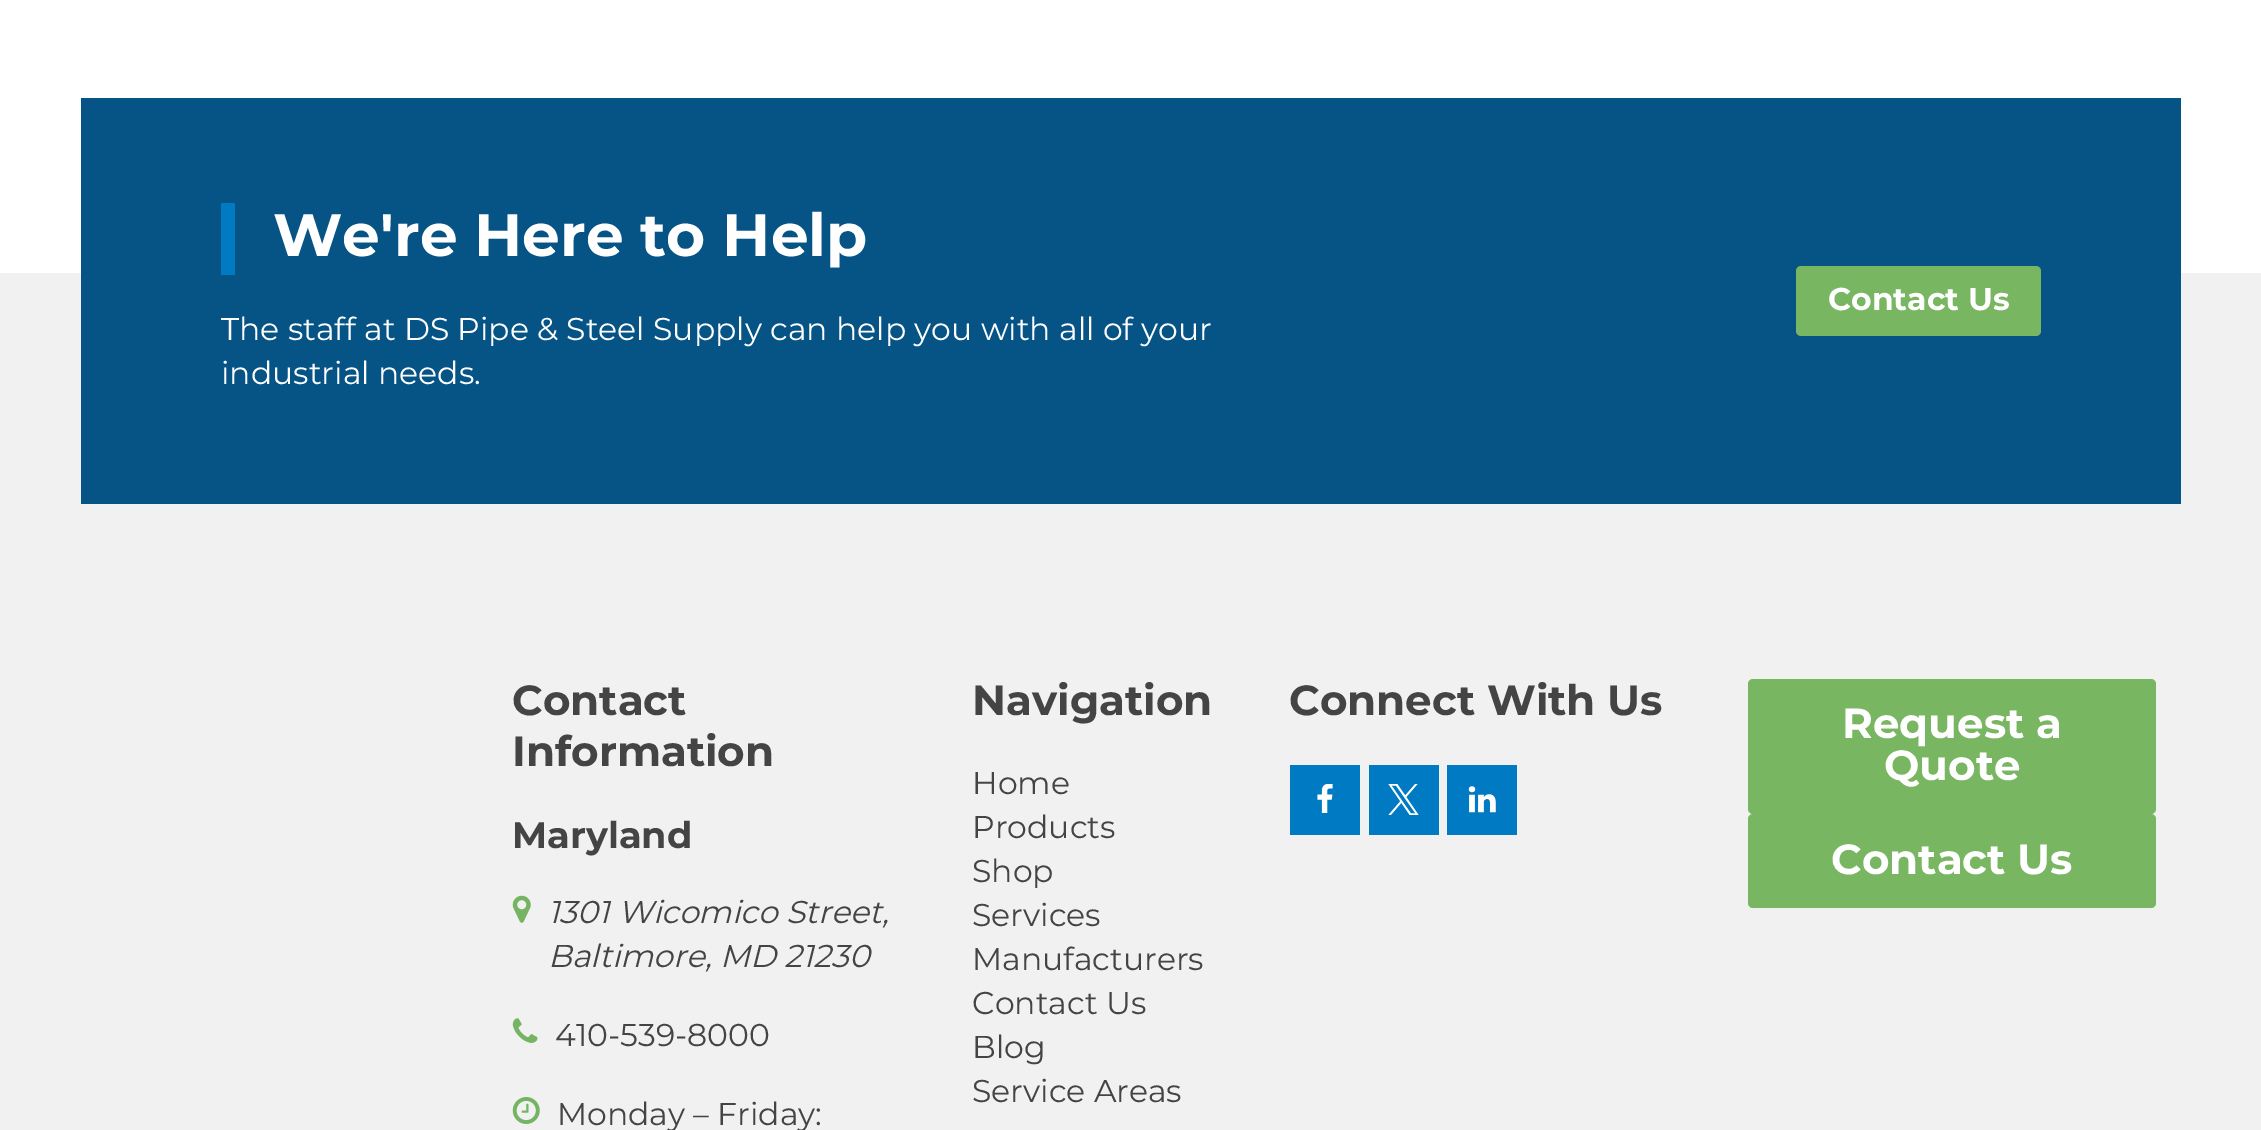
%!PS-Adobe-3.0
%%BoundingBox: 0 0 2261 1130
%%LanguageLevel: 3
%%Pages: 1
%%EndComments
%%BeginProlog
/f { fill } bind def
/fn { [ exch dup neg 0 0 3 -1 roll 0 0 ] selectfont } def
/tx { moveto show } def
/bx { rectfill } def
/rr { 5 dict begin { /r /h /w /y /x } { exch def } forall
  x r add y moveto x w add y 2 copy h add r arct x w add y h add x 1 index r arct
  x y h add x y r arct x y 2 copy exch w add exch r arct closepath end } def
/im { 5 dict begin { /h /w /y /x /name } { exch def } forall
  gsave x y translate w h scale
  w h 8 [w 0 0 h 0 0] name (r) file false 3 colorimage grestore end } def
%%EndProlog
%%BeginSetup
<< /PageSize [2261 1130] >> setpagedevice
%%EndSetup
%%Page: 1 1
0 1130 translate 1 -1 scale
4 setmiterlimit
1 setgray
0 0 2261 1130 bx
0.945 setgray
0 273 2261 857 bx
0.024 0.329 0.522 setrgbcolor
81 98 2100 406 bx
0 0.478 0.765 setrgbcolor
221 203 14 72 bx
/Montserrat-Bold 59.75 fn
1 setgray
(We're Here to Help) 273 256 tx
/Montserrat-Regular 31.5 fn
(The staff at DS Pipe & Steel Supply can help you with all of your) 221 340 tx
(industrial needs.) 221 384 tx
0.471 0.714 0.384 setrgbcolor
1796 266 245 70 5 rr f
/Montserrat-Bold 31.5 fn
1 setgray
(Contact Us) 1828 310 tx
/Montserrat-Bold 42 fn
0.267 setgray
(Contact) 512 715 tx
(Information) 512 766 tx
/Montserrat-Bold 36.75 fn
(Maryland) 512 848 tx
(image0.raw) 512 895 19 28 im
/Montserrat-Italic 31.5 fn
(1301 Wicomico Street,) 548 923 tx
(Baltimore, MD 21230) 548 967 tx
(image1.raw) 512 1018 26 25 im
/Montserrat-Regular 31.5 fn
(410-539-8000) 555 1046 tx
(image2.raw) 512 1097 28 27 im
(Monday – Friday:) 557 1125 tx
/Montserrat-Bold 42 fn
(Navigation) 972 715 tx
/Montserrat-Regular 31.5 fn
(Home) 972 794 tx
(Products) 972 838 tx
(Shop) 972 882 tx
(Services) 972 926 tx
(Manufacturers) 972 970 tx
(Contact Us) 972 1014 tx
(Blog) 972 1058 tx
(Service Areas) 972 1102 tx
/Montserrat-Bold 42 fn
(Connect With Us) 1289 715 tx
0 0.478 0.765 setrgbcolor
1290 765 70 70 bx
(image3.raw) 1317 784 16 29 im
1369 765 70 70 bx
(image4.raw) 1388 784 31 31 im
1447 765 70 70 bx
(image5.raw) 1468 786 28 27 im
0.471 0.714 0.384 setrgbcolor
1748 679 408 135 5 rr f
1 setgray
(Request a) 1842 738 tx
(Quote) 1884 780 tx
0.471 0.714 0.384 setrgbcolor
1748 814 408 94 5 rr f
1 setgray
(Contact Us) 1831 874 tx
showpage
%%EOF
